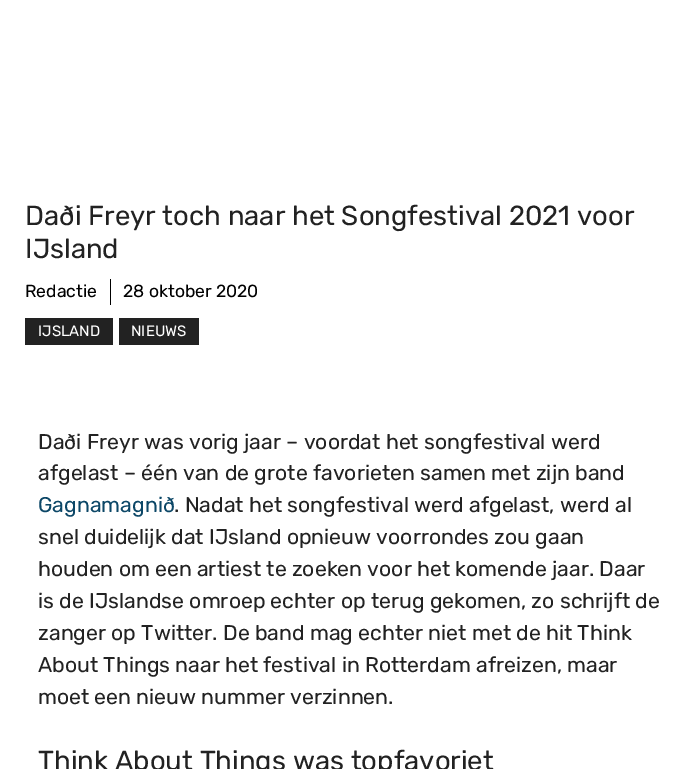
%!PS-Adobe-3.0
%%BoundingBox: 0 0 699 769
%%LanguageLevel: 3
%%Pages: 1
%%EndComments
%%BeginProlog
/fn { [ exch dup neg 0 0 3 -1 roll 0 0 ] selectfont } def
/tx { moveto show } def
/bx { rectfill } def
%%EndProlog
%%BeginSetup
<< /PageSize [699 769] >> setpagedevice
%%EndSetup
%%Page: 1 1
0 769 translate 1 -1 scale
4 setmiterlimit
1 setgray
0 0 699 769 bx
/Rubik-Regular 27.5 fn
0.133 setgray
(Daði Freyr toch naar het Songfestival 2021 voor) 25 225 tx
(IJsland) 25 258 tx
0 setgray
110 279 1 26 bx
/Rubik-Regular 17.5 fn
(Redactie) 25 297 tx
(28 oktober 2020) 123 297 tx
0.133 setgray
25 318 88 27 bx
/Rubik-Regular 15 fn
1 setgray
(IJSLAND) 38 336 tx
0.133 setgray
119 318 80 27 bx
1 setgray
(NIEUWS) 131 336 tx
/Rubik-Regular 21.25 fn
0.133 setgray
(Daði Freyr was vorig jaar – voordat het songfestival werd) 38 449 tx
(afgelast – één van de grote favorieten samen met zijn band) 38 480 tx
0.047 0.278 0.404 setrgbcolor
(Gagnamagnið) 38 512 tx
0.133 setgray
(. Nadat het songfestival werd afgelast, werd al) 174 512 tx
(snel duidelijk dat IJsland opnieuw voorrondes zou gaan) 38 544 tx
(houden om een artiest te zoeken voor het komende jaar. Daar) 38 576 tx
(is de IJslandse omroep echter op terug gekomen, zo schrijft de) 38 608 tx
(zanger op Twitter. De band mag echter niet met de hit Think) 38 640 tx
(About Things naar het festival in Rotterdam afreizen, maar) 38 672 tx
(moet een nieuw nummer verzinnen.) 38 704 tx
/Rubik-Regular 27.5 fn
(Think About Things was topfavoriet) 38 770 tx
showpage
%%EOF
